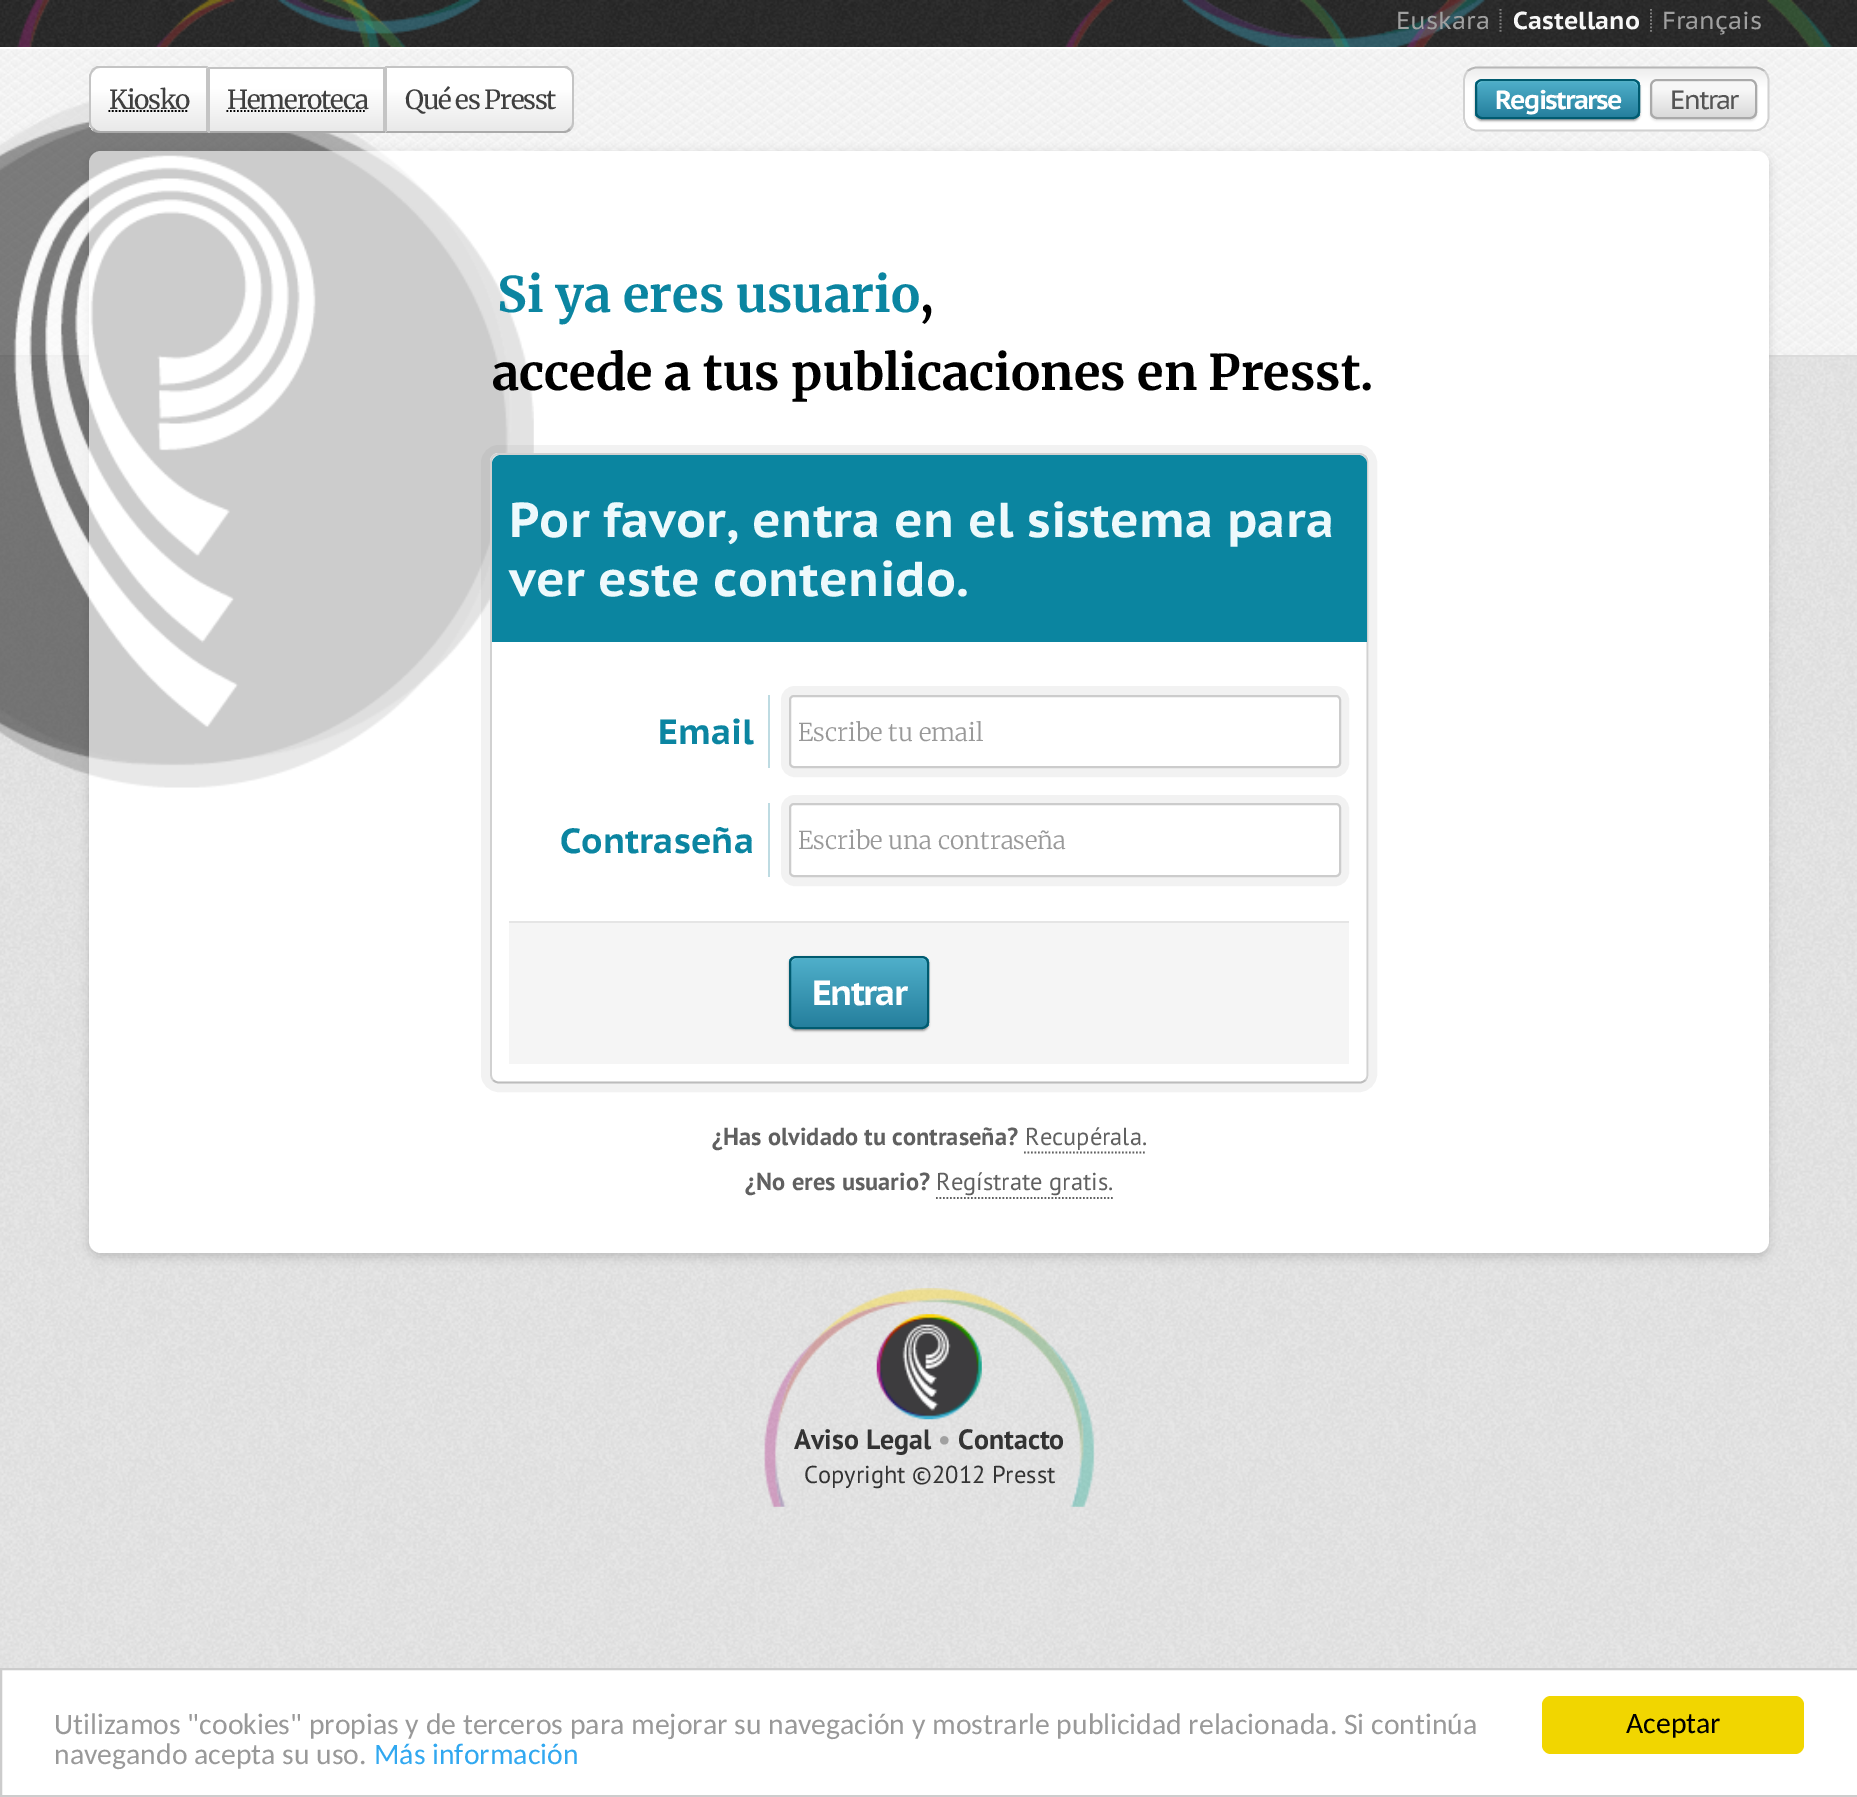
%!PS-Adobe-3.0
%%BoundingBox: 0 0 1857 1797
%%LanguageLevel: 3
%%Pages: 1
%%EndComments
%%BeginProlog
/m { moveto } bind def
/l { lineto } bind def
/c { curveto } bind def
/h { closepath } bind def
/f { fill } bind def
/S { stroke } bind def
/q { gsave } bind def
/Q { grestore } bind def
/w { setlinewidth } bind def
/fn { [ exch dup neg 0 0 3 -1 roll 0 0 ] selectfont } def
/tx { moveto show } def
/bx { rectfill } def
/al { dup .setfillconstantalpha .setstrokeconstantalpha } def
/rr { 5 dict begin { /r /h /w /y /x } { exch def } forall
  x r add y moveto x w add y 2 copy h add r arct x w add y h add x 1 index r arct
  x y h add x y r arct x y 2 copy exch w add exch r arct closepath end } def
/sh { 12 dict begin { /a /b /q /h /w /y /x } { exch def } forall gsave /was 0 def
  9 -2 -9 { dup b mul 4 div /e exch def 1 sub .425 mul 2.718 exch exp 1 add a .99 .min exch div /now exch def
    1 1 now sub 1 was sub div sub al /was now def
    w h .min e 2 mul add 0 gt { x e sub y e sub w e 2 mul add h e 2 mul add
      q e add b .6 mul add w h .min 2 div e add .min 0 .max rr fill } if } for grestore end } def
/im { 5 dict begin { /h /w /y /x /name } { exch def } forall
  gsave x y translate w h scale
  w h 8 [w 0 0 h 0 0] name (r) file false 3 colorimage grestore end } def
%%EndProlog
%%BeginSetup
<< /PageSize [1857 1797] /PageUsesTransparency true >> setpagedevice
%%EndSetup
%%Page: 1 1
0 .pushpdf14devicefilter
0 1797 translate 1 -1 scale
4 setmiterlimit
0.918 setgray
0 0 1857 1797 bx
(image0.raw) 0 357 1857 1311 im
0.149 setgray
0 0 1857 47 bx
(image1.raw) 0 0 1857 47 im
(image2.raw) 17 0 1816 47 im
0.498 setgray
1.8 w
[1.75 1.75] 0 setdash
1500.5 9 m 1500.5 33 l S
/PTSansCaption-Regular 24.5 fn
0.627 setgray
(Euskara) 1396 29 tx
0.498 setgray
1651 9 m 1651 33 l S
/PTSansCaption-Bold 24.5 fn
0.969 setgray
(Castellano) 1513 29 tx
/PTSansCaption-Regular 24.5 fn
0.627 setgray
(Français) 1662 29 tx
(image3.raw) 0 49 1857 306 im
1 setgray
0 47 1857 2 bx
0.859 setgray
0 355 1857 2 bx
q
100 67 m 208 67 l 208 133 l 100 133 l 94 133 89 128 89 122 c 89 78 l 89 72 94 67 100 67 c h clip newpath
q 89 67 m 208 67 l 208 68 l 89 68 l h clip newpath
<< /ShadingType 2 /ColorSpace /DeviceRGB /Coords [149 5.2 149 68] /Extend [true true] /Function << /FunctionType 3 /Domain [0 1] /Functions [<< /FunctionType 2 /Domain [0 1] /C0 [1 1 1] /C1 [1 1 1] /N 1 >> << /FunctionType 2 /Domain [0 1] /C0 [1 1 1] /C1 [0.914 0.914 0.914] /N 1 >>] /Bounds [0.33] /Encode [0 1 0 1] >> >> shfill Q
Q
0 setgray
89 154 1680 1103 12 5 0.15 sh
1 setgray
89 151 1680 1102 12 rr f
(image4.raw) 0 101 534 687 im
q
100 67 m 208 67 l 208 133 l 100 133 l 94 133 89 128 89 122 c 89 78 l 89 72 94 67 100 67 c h clip newpath
q 89 68 m 207 68 l 207 131 l 89 131 l h clip newpath
<< /ShadingType 2 /ColorSpace /DeviceRGB /Coords [149 68 149 131] /Extend [true true] /Function << /FunctionType 3 /Domain [0 1] /Functions [<< /FunctionType 2 /Domain [0 1] /C0 [1 1 1] /C1 [1 1 1] /N 1 >> << /FunctionType 2 /Domain [0 1] /C0 [1 1 1] /C1 [0.914 0.914 0.914] /N 1 >>] /Bounds [0.33] /Encode [0 1 0 1] >> >> shfill Q
Q
0.769 setgray
100 68 m 97 68 95 69 94 71 c 92 69 l 97 66 l 208 66 l 206 69 l 206 68 l h f
208 67 m 208 133 l 206 131 l 206 69 l h f
0.667 setgray
100 133 m 208 133 l 206 131 l 100 131 l 98 131 95 130 94 128 c 92 130 l 94 132 97 133 100 133 c h f
0.769 setgray
89 75 m 90 73 91 71 92 69 c 94 71 l 92 72 91 75 91 77 c 91 122 l 91 125 92 127 94 128 c 92 130 l 91 128 90 126 89 124 c h f
/Merriweather-Regular 26.25 fn
0.247 setgray
109 109 m -1.25 0 (Kiosko) ashow
0 setgray
108.5 111 m 188 111 l S
q 210 69 m 383 69 l 383 131 l 210 131 l h clip newpath
<< /ShadingType 2 /ColorSpace /DeviceRGB /Coords [297 68 297 131] /Extend [true true] /Function << /FunctionType 3 /Domain [0 1] /Functions [<< /FunctionType 2 /Domain [0 1] /C0 [1 1 1] /C1 [1 1 1] /N 1 >> << /FunctionType 2 /Domain [0 1] /C0 [1 1 1] /C1 [0.914 0.914 0.914] /N 1 >>] /Bounds [0.33] /Encode [0 1 0 1] >> >> shfill Q
0.769 setgray
208 67 177 2 bx
383 67 2 66 bx
0.667 setgray
208 131 177 2 bx
0.769 setgray
208 67 2 66 bx
0.247 setgray
227 109 m -1.25 0 (Hemeroteca) ashow
0 setgray
226.5 111 m 366.5 111 l S
q
385 67 m 563 67 l 569 67 574 72 574 78 c 574 122 l 574 128 569 133 563 133 c 385 133 l h clip newpath
q 387 68 m 574 68 l 574 131 l 387 131 l h clip newpath
<< /ShadingType 2 /ColorSpace /DeviceRGB /Coords [480 68 480 131] /Extend [true true] /Function << /FunctionType 3 /Domain [0 1] /Functions [<< /FunctionType 2 /Domain [0 1] /C0 [1 1 1] /C1 [1 1 1] /N 1 >> << /FunctionType 2 /Domain [0 1] /C0 [1 1 1] /C1 [0.914 0.914 0.914] /N 1 >>] /Bounds [0.33] /Encode [0 1 0 1] >> >> shfill Q
Q
0.769 setgray
387 68 m 385 66 l 567 66 l 571 69 l 570 71 l 568 69 566 68 564 68 c h f
574 122 m 574 77 l 574 74 573 71 571 69 c 570 71 l 571 72 572 75 572 77 c 572 122 l 572 125 571 127 569 128 c 571 130 l 573 128 574 125 574 122 c h f
0.667 setgray
564 133 m 566 133 569 132 571 130 c 569 128 l 568 130 566 131 564 131 c 387 131 l 385 133 l h f
0.769 setgray
385 133 m 387 131 l 387 68 l 385 66 l h f
0.247 setgray
405 109 m -1.25 0 (Qué es Presst) ashow
q
1463 67 306 64 14 rr clip newpath
q 1463 68 m 1769 68 l 1769 130 l 1463 130 l h clip newpath
<< /ShadingType 2 /ColorSpace /DeviceRGB /Coords [1616 68 1616 130] /Extend [true true] /Function << /FunctionType 3 /Domain [0 1] /Functions [<< /FunctionType 2 /Domain [0 1] /C0 [0.929 0.929 0.929] /C1 [1 1 1] /N 1 >> << /FunctionType 2 /Domain [0 1] /C0 [1 1 1] /C1 [1 1 1] /N 1 >>] /Bounds [0.33] /Encode [0 1 0 1] >> >> shfill Q
Q
0.718 setgray
[] 0 setdash
1467.5 71 m 1470 69 1473.5 67.5 1477 67.5 c 1755 67.5 l 1758.5 67.5 1762 69 1764.5 71 c S
0.82 setgray
1764.5 71 m 1767 73.5 1768.5 77 1768.5 80.5 c 1768.5 117 l 1768.5 120.5 1767 124 1764.5 126.5 c 1762 129 1758.5 130.5 1755 130.5 c 1477 130.5 l 1473.5 130.5 1470 129 1467.5 126.5 c 1465.5 124 1464 120.5 1464 117 c 1464 80.5 l 1464 77 1465.5 73.5 1467.5 71 c S
0 setgray
1475 81 165 40 7 1 0.35 sh
q
1475 79 165 40 7 rr clip newpath
q 1475 81 m 1640 81 l 1640 117 l 1475 117 l h clip newpath
<< /ShadingType 2 /ColorSpace /DeviceRGB /Coords [1558 80 1558 117] /Extend [true true] /Function << /FunctionType 2 /Domain [0 1] /C0 [0.314 0.69 0.796] /C1 [0.145 0.498 0.616] /N 1 >> >> shfill Q
Q
0.443 0.804 0.886 setrgbcolor
1482 82 m 1633 82 l 1636 82 1638 85 1638 88 c 1638 86 l 1638 83 1636 81 1633 81 c 1482 81 l 1479 81 1477 83 1477 86 c 1477 88 l 1477 85 1479 82 1482 82 c h f
0 0.357 0.439 setrgbcolor
2 w
1476 80 163 38 6 rr S
/PTSansCaption-Bold 26.25 fn
1 setgray
1495 109 m -1.75 0 (Registrarse) ashow
0 setgray
1650 81 107 40 7 1 0.1 sh
q
1650 79 107 40 7 rr clip newpath
q 1650 81 m 1757 81 l 1757 117 l 1650 117 l h clip newpath
<< /ShadingType 2 /ColorSpace /DeviceRGB /Coords [1704 81 1704 117] /Extend [true true] /Function << /FunctionType 3 /Domain [0 1] /Functions [<< /FunctionType 2 /Domain [0 1] /C0 [0.969 0.969 0.969] /C1 [0.969 0.969 0.969] /N 1 >> << /FunctionType 2 /Domain [0 1] /C0 [0.969 0.969 0.969] /C1 [0.855 0.855 0.855] /N 1 >>] /Bounds [0.25] /Encode [0 1 0 1] >> >> shfill Q
Q
1 setgray
1657 82 m 1750 82 l 1753 82 1755 85 1755 88 c 1755 77 1743 81 1734 81 c 1672 81 l 1664 81 1652 77 1652 88 c 1652 85 1654 82 1657 82 c h f
0.667 setgray
1651 80 105 38 6 rr S
/PTSansCaption-Regular 26.25 fn
0.329 setgray
1670 109 m -1.75 0 (Entrar) ashow
0.6 al
1 setgray
89 151 525 656 12 rr f
/Merriweather-Bold 49 fn
1 al
0.043 0.522 0.631 setrgbcolor
(Si ya eres usuario) 497 312 tx
0 setgray
(,) 920 312 tx
(accede a tus publicaciones en Presst.) 492 390 tx
0.1 al
0.498 setgray
9 w
485.5 449.5 887 638 13.5 rr S
1 al
1 setgray
490 453 879 630 9 rr f
0.737 setgray
1.8 w
1365.5 1080 m 1364 1081.5 1362 1082.5 1360 1082.5 c 499 1082.5 l 496.5 1082.5 494.5 1081.5 493 1080 c S
0.82 setgray
493 1080 m 491.5 1078.5 491 1076.5 491 1074.5 c 491 462 l 491 460 491.5 458 493 456.5 c 494.5 455 496.5 454 499 454 c 1360 454 l 1362 454 1364 455 1365.5 456.5 c 1367 458 1367.5 460 1367.5 462 c 1367.5 1074.5 l 1367.5 1076.5 1367 1078.5 1365.5 1080 c S
0.043 0.522 0.627 setrgbcolor
501 455 m 1358 455 l 1363 455 1367 459 1367 464 c 1367 642 l 492 642 l 492 464 l 492 459 496 455 501 455 c h f
/PTSansCaption-Bold 49 fn
0.929 0.976 0.988 setrgbcolor
(Por favor, entra en el sistema para) 509 537 tx
(ver este contenido.) 509 596 tx
0.745 0.859 0.886 setrgbcolor
768 695 2 73 bx
/PTSansCaption-Bold 35 fn
0.043 0.522 0.631 setrgbcolor
(Email) 658 744 tx
0.949 setgray
9 w
785.5 690.5 559 82 9.5 rr S
1 setgray
790 696 550 71 4 rr q f Q
0.8 setgray
2 w
S
/Merriweather-Light 24.5 fn
0.6 setgray
(Escribe tu email) 798 741 tx
0.745 0.859 0.886 setrgbcolor
768 803 2 74 bx
/PTSansCaption-Bold 35 fn
0.043 0.522 0.631 setrgbcolor
(Contraseña) 560 853 tx
0.949 setgray
9 w
785.5 799.5 559 82 9.5 rr S
1 setgray
790 804 550 72 4 rr q f Q
0.8 setgray
2 w
S
/Merriweather-Light 24.5 fn
0.6 setgray
(Escribe una contraseña) 798 849 tx
0.961 setgray
509 923 840 141 bx
0.898 setgray
509 921 840 2 bx
0 setgray
789 957 140 74 7 1 0.35 sh
q
789 956 140 73 7 rr clip newpath
q 789 957 m 929 957 l 929 1027 l 789 1027 l h clip newpath
<< /ShadingType 2 /ColorSpace /DeviceRGB /Coords [859 957 859 1027] /Extend [true true] /Function << /FunctionType 2 /Domain [0 1] /C0 [0.314 0.69 0.796] /C1 [0.145 0.498 0.616] /N 1 >> >> shfill Q
Q
0.443 0.804 0.886 setrgbcolor
796 959 m 922 959 l 925 959 928 961 928 964 c 928 962 l 928 959 926 957 923 957 c 796 957 l 793 957 791 959 791 962 c 791 964 l 791 961 793 959 796 959 c h f
0 0.357 0.439 setrgbcolor
790 957 138 71 6 rr S
/PTSansCaption-Bold 35 fn
1 setgray
812 1005 m -1.75 0 (Entrar) ashow
/PTSans-Bold 24.5 fn
0.376 setgray
(¿Has olvidado tu contraseña?) 712 1145 tx
/PTSans-Regular 24.5 fn
(Recupérala.) 1025 1145 tx
1.8 w
[1.75 1.75] 0 setdash
1024 1152.5 m 1146 1152.5 l S
/PTSans-Bold 24.5 fn
(¿No eres usuario?) 745 1190 tx
/PTSans-Regular 24.5 fn
(Regístrate gratis.) 936 1190 tx
936 1198 m 1113 1198 l S
(image5.raw) 764 1288 331 219 im
(image6.raw) 876 1314 106 106 im
/PTSans-Bold 28 fn
0.2 setgray
(Aviso Legal) 794 1449 tx
0.627 setgray
(•) 938 1449 tx
0.2 setgray
(Contacto) 958 1449 tx
/PTSans-Regular 24.5 fn
(Copyright ©2012 Presst) 804 1483 tx
1 setgray
1 1669 m 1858 1669 l 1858 1796 l 1 1796 l h q f Q
0.8 setgray
2 w
[] 0 setdash
S
/Carlito-Regular 29.75 fn
0.6 setgray
(Utilizamos "cookies" propias y de terceros para mejorar su navegación y mostrarle publicidad relacionada. Si continúa) 54 1734 tx
(navegando acepta su uso.) 54 1764 tx
0.192 0.659 0.941 setrgbcolor
(Más información) 374 1764 tx
0.945 0.839 0 setrgbcolor
1542 1696 262 58 9 rr f
0 setgray
(Aceptar) 1626 1733 tx
.poppdf14devicefilter showpage
%%EOF
